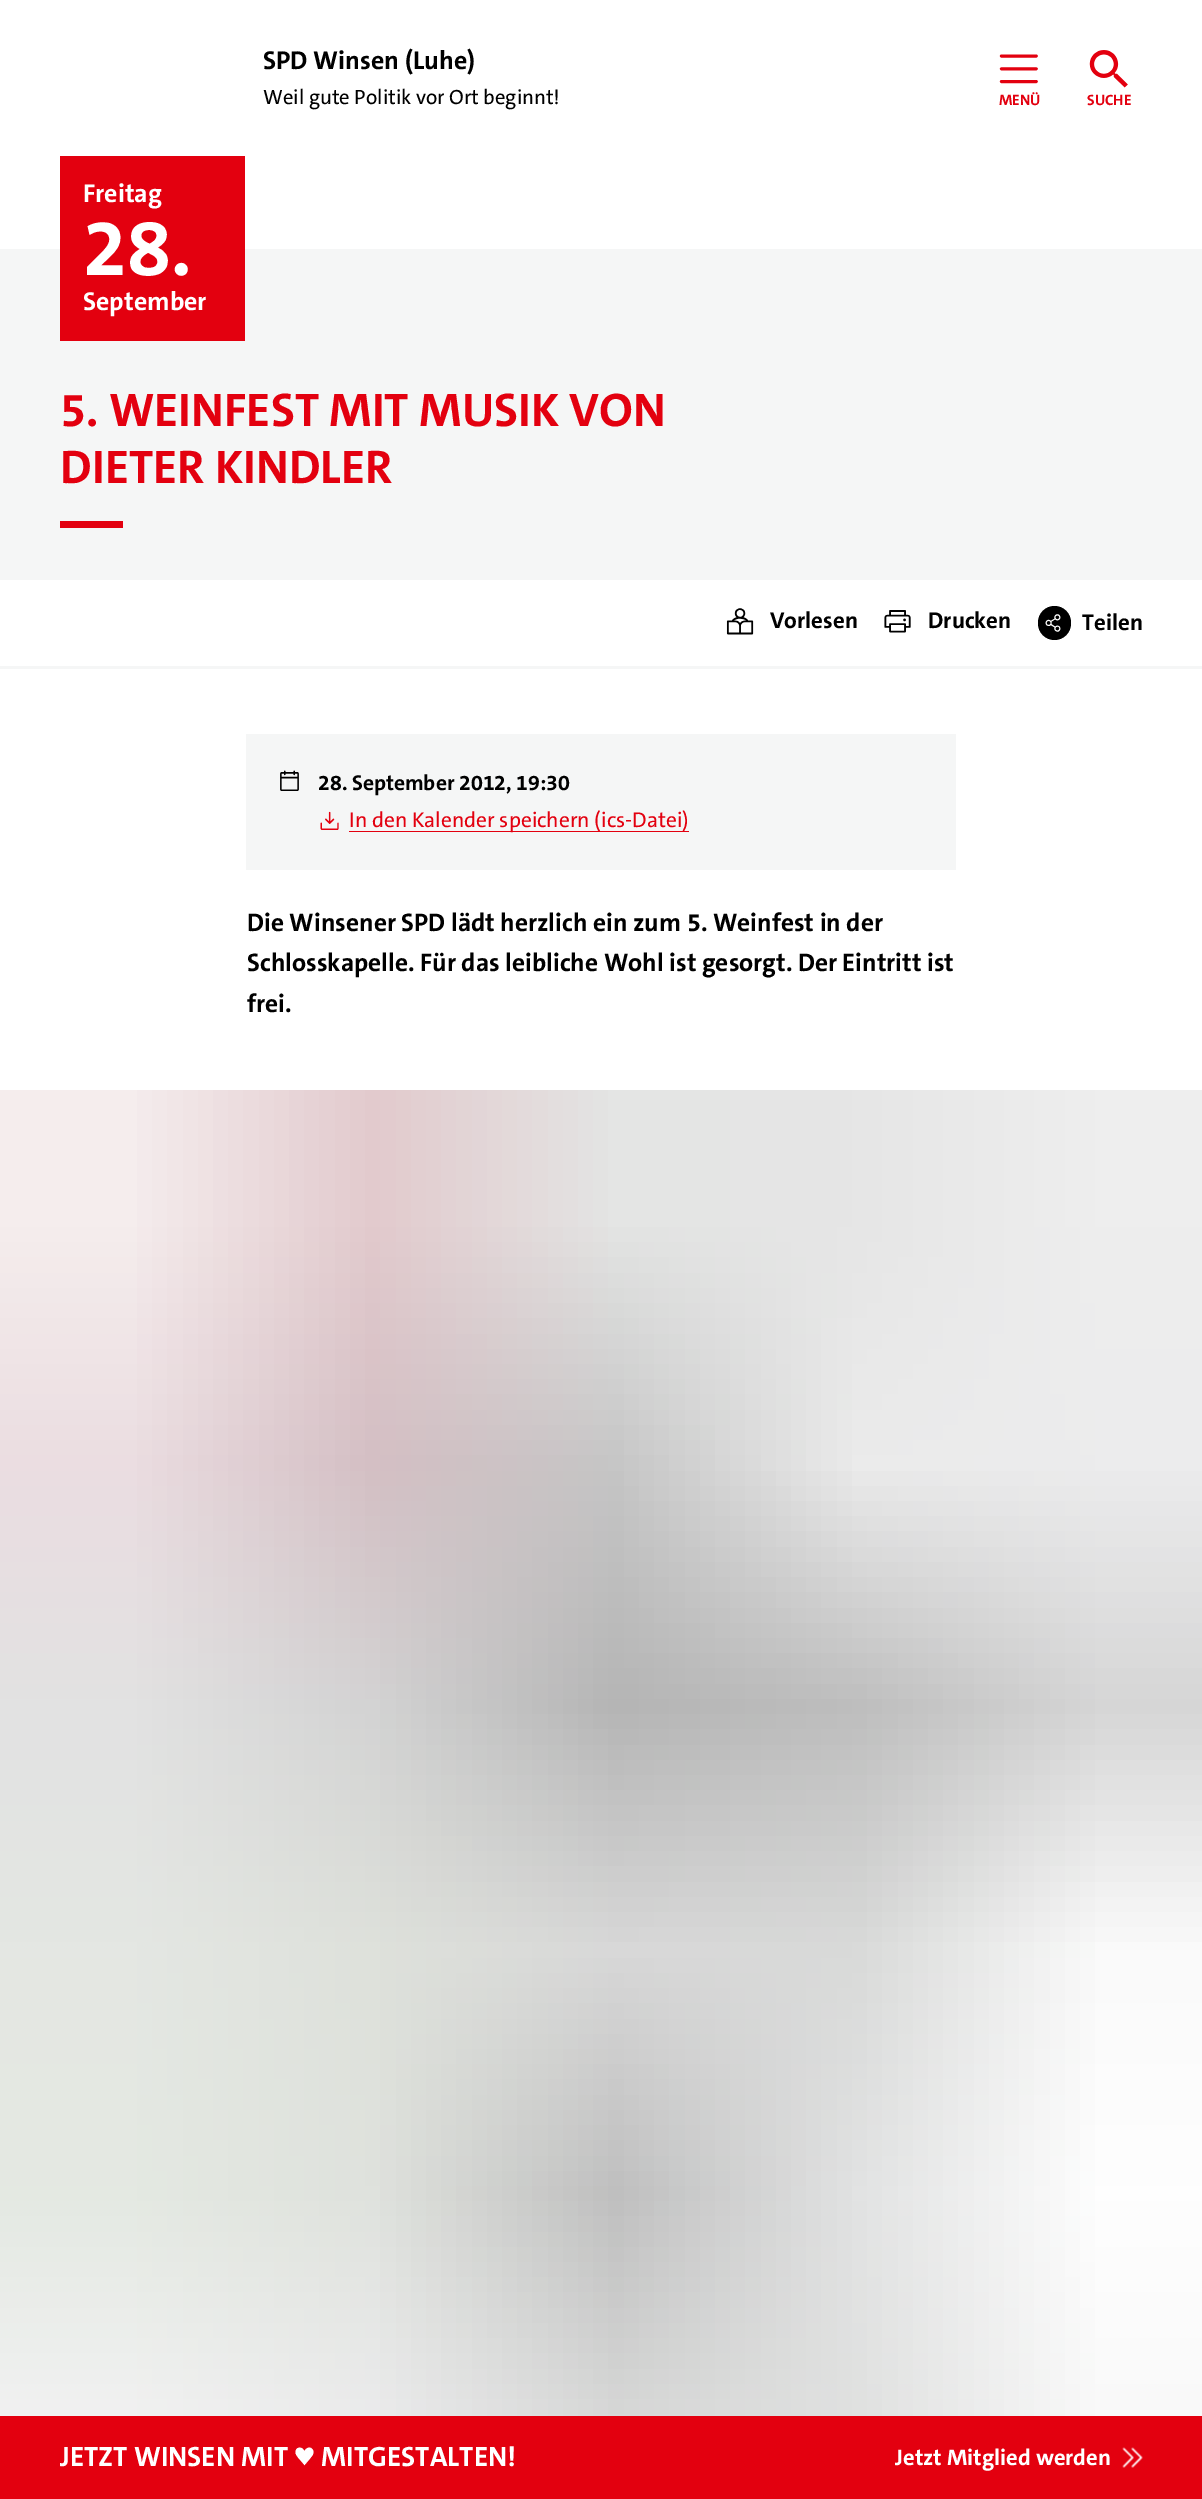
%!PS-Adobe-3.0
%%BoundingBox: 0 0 1202 2499
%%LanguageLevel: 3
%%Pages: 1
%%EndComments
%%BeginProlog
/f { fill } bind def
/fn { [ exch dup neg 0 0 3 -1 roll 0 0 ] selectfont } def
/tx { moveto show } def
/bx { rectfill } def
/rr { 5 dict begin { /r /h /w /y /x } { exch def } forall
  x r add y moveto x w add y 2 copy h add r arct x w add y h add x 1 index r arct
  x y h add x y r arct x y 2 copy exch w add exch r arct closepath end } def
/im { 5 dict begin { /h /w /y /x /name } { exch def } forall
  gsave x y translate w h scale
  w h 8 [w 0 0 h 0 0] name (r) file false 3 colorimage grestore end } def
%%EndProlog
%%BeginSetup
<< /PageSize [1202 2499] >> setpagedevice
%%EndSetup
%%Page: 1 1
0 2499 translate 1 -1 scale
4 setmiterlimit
1 setgray
0 0 1202 2499 bx
/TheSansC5-Bold 26 fn
0 setgray
(SPD Winsen \(Luhe\)) 263 69 tx
/TheSansC5-Medium 20.75 fn
(Weil gute Politik vor Ort beginnt!) 263 104 tx
(image0.raw) 999 54 39 30 im
/TheSansC5-Bold 15 fn
0.89 0 0.059 setrgbcolor
(MENÜ) 999 105 tx
(image1.raw) 1089 50 39 38 im
(SUCHE) 1087 105 tx
0.961 0.965 0.965 setrgbcolor
0 249 1202 331 bx
0.89 0 0.059 setrgbcolor
60 156 185 185 bx
/TheSansC5-Bold 26 fn
1 setgray
(Freitag) 83 202 tx
/TheSansC5-Bold 80 fn
(28.) 83 275 tx
/TheSansC5-Bold 26 fn
(September) 83 310 tx
/TheSansC5-Bold 47.5 fn
0.89 0 0.059 setrgbcolor
(5. WEINFEST MIT MUSIK VON) 60 426 tx
(DIETER KINDLER) 60 483 tx
60 521 63 7 bx
0.961 0.965 0.965 setrgbcolor
0 666 1202 3 bx
(image2.raw) 726 608 28 27 im
/TheSansC5-Bold 23 fn
0 setgray
(Vorlesen) 770 628 tx
(image3.raw) 884 610 27 23 im
(Drucken) 928 628 tx
1038 606 33 34 16.5 rr f
(image4.raw) 1045 614 16 18 im
(Teilen) 1082 630 tx
0.961 0.965 0.965 setrgbcolor
246 734 710 136 bx
(image5.raw) 280 770 19 21 im
/TheSansC5-Bold 21.5 fn
0 setgray
(28. September 2012, 19:30) 318 790 tx
(image6.raw) 320 811 19 19 im
0.89 0 0.059 setrgbcolor
349 831 340 1 bx
/TheSansC5-Medium 21.5 fn
(In den Kalender speichern \(ics-Datei\)) 349 827 tx
/TheSansC5-Bold 25.5 fn
0 setgray
(Die Winsener SPD lädt herzlich ein zum 5. Weinfest in der) 247 931 tx
(Schlosskapelle. Für das leibliche Wohl ist gesorgt. Der Eintritt ist) 247 971 tx
(frei.) 247 1012 tx
(image7.raw) 0 1090 1202 1326 im
0.89 0 0.059 setrgbcolor
0 2416 1202 83 bx
/TheSansC5-Bold 28 fn
1 setgray
(JETZT WINSEN MIT ♥ MITGESTALTEN!) 60 2466 tx
/TheSansC5-Bold 22.75 fn
(Jetzt Mitglied werden) 895 2465 tx
(image8.raw) 1122 2447 21 21 im
showpage
%%EOF
